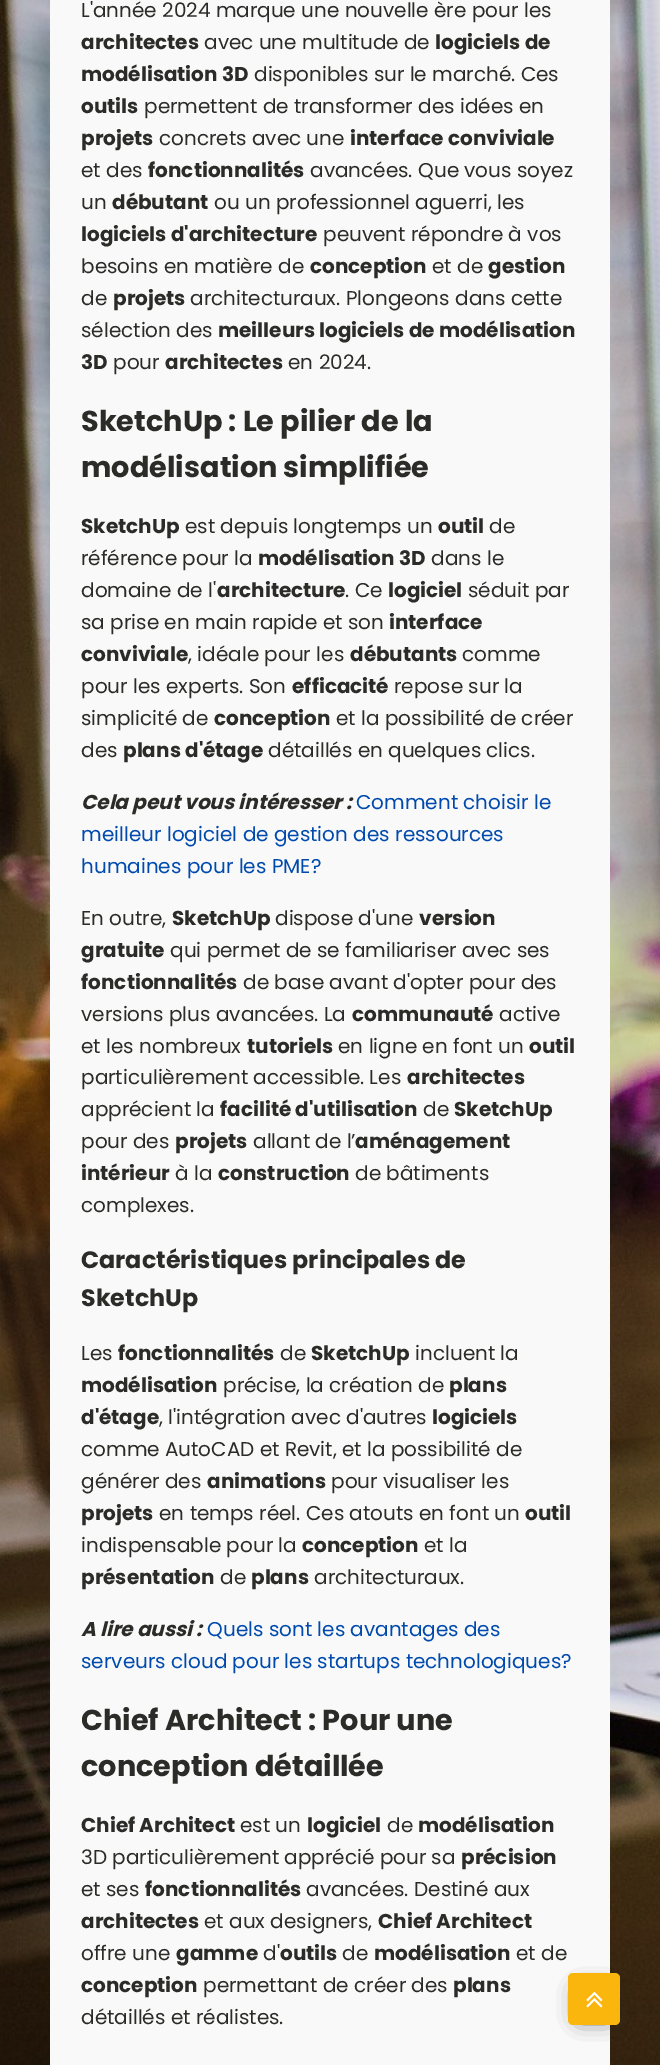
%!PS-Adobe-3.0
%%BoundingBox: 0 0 660 2065
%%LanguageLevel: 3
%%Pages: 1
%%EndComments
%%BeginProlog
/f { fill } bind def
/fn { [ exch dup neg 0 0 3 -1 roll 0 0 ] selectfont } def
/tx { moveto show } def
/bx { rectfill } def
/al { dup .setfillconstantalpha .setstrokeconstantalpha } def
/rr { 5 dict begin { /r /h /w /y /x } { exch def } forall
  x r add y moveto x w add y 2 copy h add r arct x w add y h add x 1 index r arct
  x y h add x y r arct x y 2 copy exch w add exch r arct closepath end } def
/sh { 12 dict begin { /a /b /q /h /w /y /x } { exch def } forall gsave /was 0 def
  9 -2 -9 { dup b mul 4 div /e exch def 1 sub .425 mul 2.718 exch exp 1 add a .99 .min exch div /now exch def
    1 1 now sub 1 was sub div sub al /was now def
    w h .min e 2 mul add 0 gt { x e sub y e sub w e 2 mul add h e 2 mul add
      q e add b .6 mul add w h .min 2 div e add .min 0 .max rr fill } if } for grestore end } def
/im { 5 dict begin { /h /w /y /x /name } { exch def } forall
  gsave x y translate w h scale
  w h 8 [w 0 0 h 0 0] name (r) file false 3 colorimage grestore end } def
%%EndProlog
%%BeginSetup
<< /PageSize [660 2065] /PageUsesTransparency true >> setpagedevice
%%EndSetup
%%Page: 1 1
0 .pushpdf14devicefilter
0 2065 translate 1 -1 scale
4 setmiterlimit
1 setgray
0 0 660 2065 bx
(image0.raw) 0 0 660 2065 im
0.976 setgray
50 0 560 2065 bx
/Poppins-Regular 20 fn
0.169 0.173 0.157 setrgbcolor
(L'année 2024 marque une nouvelle ère pour les) 81 17 tx
/Poppins-Bold 20 fn
(architectes) 81 49 tx
/Poppins-Regular 20 fn
(avec une multitude de) 204 49 tx
/Poppins-Bold 20 fn
(logiciels de) 435 49 tx
(modélisation 3D) 81 81 tx
/Poppins-Regular 20 fn
(disponibles sur le marché. Ces) 254 81 tx
/Poppins-Bold 20 fn
(outils) 81 113 tx
/Poppins-Regular 20 fn
(permettent de transformer des idées en) 144 113 tx
/Poppins-Bold 20 fn
(projets) 81 145 tx
/Poppins-Regular 20 fn
(concrets avec une) 159 145 tx
/Poppins-Bold 20 fn
(interface conviviale) 350 145 tx
/Poppins-Regular 20 fn
(et des) 81 177 tx
/Poppins-Bold 20 fn
(fonctionnalités) 148 177 tx
/Poppins-Regular 20 fn
(avancées. Que vous soyez) 310 177 tx
(un) 81 209 tx
/Poppins-Bold 20 fn
(débutant) 112 209 tx
/Poppins-Regular 20 fn
(ou un professionnel aguerri, les) 214 209 tx
/Poppins-Bold 20 fn
(logiciels d'architecture) 81 241 tx
/Poppins-Regular 20 fn
(peuvent répondre à vos) 323 241 tx
(besoins en matière de) 81 273 tx
/Poppins-Bold 20 fn
(conception) 310 273 tx
/Poppins-Regular 20 fn
(et de) 432 273 tx
/Poppins-Bold 20 fn
(gestion) 488 273 tx
/Poppins-Regular 20 fn
(de) 81 305 tx
/Poppins-Bold 20 fn
(projets) 113 305 tx
/Poppins-Regular 20 fn
(architecturaux. Plongeons dans cette) 190 305 tx
(sélection des) 81 337 tx
/Poppins-Bold 20 fn
(meilleurs logiciels de modélisation) 218 337 tx
(3D) 81 369 tx
/Poppins-Regular 20 fn
(pour) 113 369 tx
/Poppins-Bold 20 fn
(architectes) 165 369 tx
/Poppins-Regular 20 fn
(en 2024.) 288 369 tx
/Poppins-Bold 28.75 fn
(SketchUp : Le pilier de la) 81 431 tx
(modélisation simplifiée) 81 477 tx
/Poppins-Bold 20 fn
(SketchUp) 81 533 tx
/Poppins-Regular 20 fn
(est depuis longtemps un) 185 533 tx
/Poppins-Bold 20 fn
(outil) 438 533 tx
/Poppins-Regular 20 fn
(de) 489 533 tx
(référence pour la) 81 565 tx
/Poppins-Bold 20 fn
(modélisation 3D) 258 565 tx
/Poppins-Regular 20 fn
(dans le) 431 565 tx
(domaine de l') 81 597 tx
/Poppins-Bold 20 fn
(architecture) 217 597 tx
/Poppins-Regular 20 fn
(. Ce) 345 597 tx
/Poppins-Bold 20 fn
(logiciel) 388 597 tx
/Poppins-Regular 20 fn
(séduit par) 468 597 tx
(sa prise en main rapide et son) 81 629 tx
/Poppins-Bold 20 fn
(interface) 389 629 tx
(conviviale) 81 661 tx
/Poppins-Regular 20 fn
(, idéale pour les) 188 661 tx
/Poppins-Bold 20 fn
(débutants) 350 661 tx
/Poppins-Regular 20 fn
(comme) 462 661 tx
(pour les experts. Son) 81 693 tx
/Poppins-Bold 20 fn
(efficacité) 292 693 tx
/Poppins-Regular 20 fn
(repose sur la) 394 693 tx
(simplicité de) 81 725 tx
/Poppins-Bold 20 fn
(conception) 214 725 tx
/Poppins-Regular 20 fn
(et la possibilité de créer) 336 725 tx
(des) 81 757 tx
/Poppins-Bold 20 fn
(plans d'étage) 123 757 tx
/Poppins-Regular 20 fn
(détaillés en quelques clics.) 268 757 tx
/Poppins-BoldItalic 20 fn
(Cela peut vous intéresser :) 81 809 tx
/Poppins-Regular 20 fn
0 0.29 0.678 setrgbcolor
(Comment choisir le) 356 809 tx
(meilleur logiciel de gestion des ressources) 81 841 tx
(humaines pour les PME?) 81 873 tx
0.169 0.173 0.157 setrgbcolor
(En outre,) 81 925 tx
/Poppins-Bold 20 fn
(SketchUp) 172 925 tx
/Poppins-Regular 20 fn
(dispose d'une) 275 925 tx
/Poppins-Bold 20 fn
(version) 419 925 tx
(gratuite) 81 957 tx
/Poppins-Regular 20 fn
(qui permet de se familiariser avec ses) 170 957 tx
/Poppins-Bold 20 fn
(fonctionnalités) 81 989 tx
/Poppins-Regular 20 fn
(de base avant d'opter pour des) 243 989 tx
(versions plus avancées. La) 81 1021 tx
/Poppins-Bold 20 fn
(communauté) 352 1021 tx
/Poppins-Regular 20 fn
(active) 499 1021 tx
(et les nombreux) 81 1053 tx
/Poppins-Bold 20 fn
(tutoriels) 247 1053 tx
/Poppins-Regular 20 fn
(en ligne en font un) 338 1053 tx
/Poppins-Bold 20 fn
(outil) 529 1053 tx
/Poppins-Regular 20 fn
(particulièrement accessible. Les) 81 1084 tx
/Poppins-Bold 20 fn
(architectes) 407 1084 tx
/Poppins-Regular 20 fn
(apprécient la) 81 1116 tx
/Poppins-Bold 20 fn
(facilité d'utilisation) 220 1116 tx
/Poppins-Regular 20 fn
(de) 423 1116 tx
/Poppins-Bold 20 fn
(SketchUp) 454 1116 tx
/Poppins-Regular 20 fn
(pour des) 81 1148 tx
/Poppins-Bold 20 fn
(projets) 175 1148 tx
/Poppins-Regular 20 fn
(allant de l’) 253 1148 tx
/Poppins-Bold 20 fn
(aménagement) 355 1148 tx
(intérieur) 81 1180 tx
/Poppins-Regular 20 fn
(à la) 175 1180 tx
/Poppins-Bold 20 fn
(construction) 218 1180 tx
/Poppins-Regular 20 fn
(de bâtiments) 355 1180 tx
(complexes.) 81 1212 tx
/Poppins-Bold 23.75 fn
(Caractéristiques principales de) 81 1268 tx
(SketchUp) 81 1306 tx
/Poppins-Regular 20 fn
(Les) 81 1360 tx
/Poppins-Bold 20 fn
(fonctionnalités) 118 1360 tx
/Poppins-Regular 20 fn
(de) 280 1360 tx
/Poppins-Bold 20 fn
(SketchUp) 311 1360 tx
/Poppins-Regular 20 fn
(incluent la) 415 1360 tx
/Poppins-Bold 20 fn
(modélisation) 81 1392 tx
/Poppins-Regular 20 fn
(précise, la création de) 223 1392 tx
/Poppins-Bold 20 fn
(plans) 449 1392 tx
(d'étage) 81 1424 tx
/Poppins-Regular 20 fn
(, l'intégration avec d'autres) 159 1424 tx
/Poppins-Bold 20 fn
(logiciels) 432 1424 tx
/Poppins-Regular 20 fn
(comme AutoCAD et Revit, et la possibilité de) 81 1456 tx
(générer des) 81 1488 tx
/Poppins-Bold 20 fn
(animations) 207 1488 tx
/Poppins-Regular 20 fn
(pour visualiser les) 331 1488 tx
/Poppins-Bold 20 fn
(projets) 81 1520 tx
/Poppins-Regular 20 fn
(en temps réel. Ces atouts en font un) 159 1520 tx
/Poppins-Bold 20 fn
(outil) 525 1520 tx
/Poppins-Regular 20 fn
(indispensable pour la) 81 1552 tx
/Poppins-Bold 20 fn
(conception) 302 1552 tx
/Poppins-Regular 20 fn
(et la) 424 1552 tx
/Poppins-Bold 20 fn
(présentation) 81 1584 tx
/Poppins-Regular 20 fn
(de) 220 1584 tx
/Poppins-Bold 20 fn
(plans) 251 1584 tx
/Poppins-Regular 20 fn
(architecturaux.) 314 1584 tx
/Poppins-BoldItalic 20 fn
(A lire aussi :) 81 1636 tx
/Poppins-Regular 20 fn
0 0.29 0.678 setrgbcolor
(Quels sont les avantages des) 207 1636 tx
(serveurs cloud pour les startups technologiques?) 81 1668 tx
/Poppins-Bold 28.75 fn
0.169 0.173 0.157 setrgbcolor
(Chief Architect : Pour une) 81 1730 tx
(conception détaillée) 81 1776 tx
/Poppins-Bold 20 fn
(Chief Architect) 81 1832 tx
/Poppins-Regular 20 fn
(est un) 240 1832 tx
/Poppins-Bold 20 fn
(logiciel) 307 1832 tx
/Poppins-Regular 20 fn
(de) 387 1832 tx
/Poppins-Bold 20 fn
(modélisation) 418 1832 tx
/Poppins-Regular 20 fn
(3D particulièrement apprécié pour sa) 81 1864 tx
/Poppins-Bold 20 fn
(précision) 461 1864 tx
/Poppins-Regular 20 fn
(et ses) 81 1896 tx
/Poppins-Bold 20 fn
(fonctionnalités) 145 1896 tx
/Poppins-Regular 20 fn
(avancées. Destiné aux) 306 1896 tx
/Poppins-Bold 20 fn
(architectes) 81 1928 tx
/Poppins-Regular 20 fn
(et aux designers,) 204 1928 tx
/Poppins-Bold 20 fn
(Chief Architect) 378 1928 tx
/Poppins-Regular 20 fn
(offre une) 81 1960 tx
/Poppins-Bold 20 fn
(gamme) 176 1960 tx
/Poppins-Regular 20 fn
(d') 263 1960 tx
/Poppins-Bold 20 fn
(outils) 280 1960 tx
/Poppins-Regular 20 fn
(de) 342 1960 tx
/Poppins-Bold 20 fn
(modélisation) 374 1960 tx
/Poppins-Regular 20 fn
(et de) 516 1960 tx
/Poppins-Bold 20 fn
(conception) 81 1992 tx
/Poppins-Regular 20 fn
(permettant de créer des) 203 1992 tx
/Poppins-Bold 20 fn
(plans) 453 1992 tx
/Poppins-Regular 20 fn
(détaillés et réalistes.) 81 2024 tx
0.118 setgray
580 1990 28 28 0 10.5 1 sh
0.98 0.714 0.051 setrgbcolor
568 1973 52 52 5 rr f
(image1.raw) 586 1991 17 17 im
.poppdf14devicefilter showpage
%%EOF
